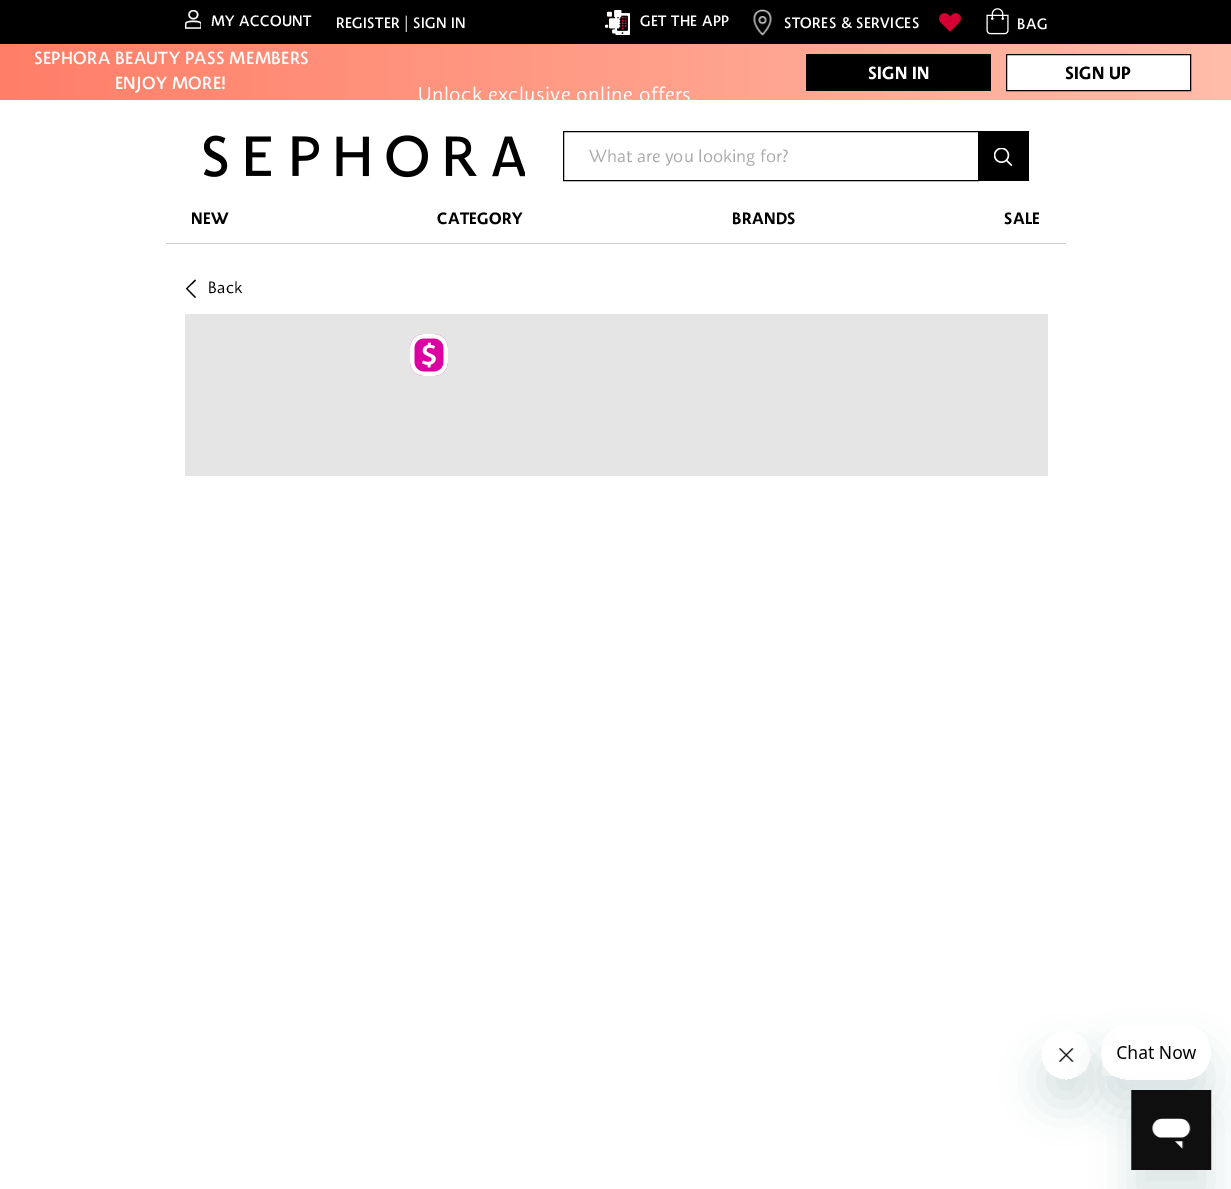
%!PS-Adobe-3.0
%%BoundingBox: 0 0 1231 1189
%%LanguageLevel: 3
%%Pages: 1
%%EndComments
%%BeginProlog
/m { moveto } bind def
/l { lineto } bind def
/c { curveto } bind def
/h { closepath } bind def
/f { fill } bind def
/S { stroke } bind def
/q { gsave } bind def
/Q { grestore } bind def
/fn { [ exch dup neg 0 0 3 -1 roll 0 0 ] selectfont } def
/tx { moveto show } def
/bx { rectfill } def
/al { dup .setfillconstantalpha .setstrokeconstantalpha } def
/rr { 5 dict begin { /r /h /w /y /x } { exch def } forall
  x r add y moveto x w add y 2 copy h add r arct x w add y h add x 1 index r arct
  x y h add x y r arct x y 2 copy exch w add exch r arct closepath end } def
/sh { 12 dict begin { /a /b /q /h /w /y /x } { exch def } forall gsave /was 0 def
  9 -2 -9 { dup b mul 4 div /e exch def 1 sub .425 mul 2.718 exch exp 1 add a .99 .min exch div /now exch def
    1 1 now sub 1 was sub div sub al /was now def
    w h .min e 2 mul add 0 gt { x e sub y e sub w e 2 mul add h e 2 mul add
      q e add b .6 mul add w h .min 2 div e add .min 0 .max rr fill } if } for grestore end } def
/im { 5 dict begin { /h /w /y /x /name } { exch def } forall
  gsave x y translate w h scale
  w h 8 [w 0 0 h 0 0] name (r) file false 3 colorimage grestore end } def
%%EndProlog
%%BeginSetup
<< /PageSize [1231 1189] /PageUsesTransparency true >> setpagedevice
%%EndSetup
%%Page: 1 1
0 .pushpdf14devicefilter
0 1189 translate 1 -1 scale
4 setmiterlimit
1 setgray
0 0 1231 1189 bx
0 setgray
0 0 1231 44 bx
(image0.raw) 185 10 16 19 im
/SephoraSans-Medium 15 fn
1 setgray
211 26 m 0.4 0 (MY ACCOUNT) ashow
336 28 m 0.4 0 (REGISTER) ashow
404 28 m 0.4 0 (|) ashow
413 28 m 0.4 0 (SIGN IN) ashow
(image1.raw) 605 10 25 25 im
640 26 m 0.4 0 (GET THE APP) ashow
(image2.raw) 753 9 19 27 im
784 28 m 0.4 0 (STORES & SERVICES) ashow
(image3.raw) 939 13 22 19 im
(image4.raw) 986 8 23 27 im
1017 29 m 0.4 0 (BAG) ashow
q 0 44 m 1231 44 l 1231 100 l 0 100 l h clip newpath
<< /ShadingType 2 /ColorSpace /DeviceRGB /Coords [1231 72 0 72] /Extend [true true] /Function << /FunctionType 2 /Domain [0 1] /C0 [1 0.741 0.663] /C1 [1 0.494 0.404] /N 1 >> >> shfill Q
/SephoraSans-Medium 17.5 fn
34 64 m 0.4 0 (SEPHORA BEAUTY PASS MEMBERS) ashow
115 89 m 0.4 0 (ENJOY MORE!) ashow
0 setgray
806 54 185 37 bx
/SephoraSans-Bold 17.5 fn
1 setgray
868 79 m 0.4 0 (SIGN IN) ashow
1006.5 54.5 m 1190.5 54.5 l 1190.5 90.5 l 1006.5 90.5 l h q f Q
0 setgray
S
1065 79 m 0.4 0 (SIGN UP) ashow
q
345 69 419 31 rectclip
/SephoraSans-Regular 20 fn
1 setgray
418 101 m 0.4 0 (Unlock exclusive online offers) ashow
Q
(image5.raw) 204 135 321 43 im
563.5 131.5 415 49 rectstroke
/SephoraSans-Regular 17.5 fn
0.667 setgray
(What are you looking for?) 589 162 tx
0 setgray
979 131 50 50 bx
(image6.raw) 994 148 19 18 im
0.8 setgray
166 243 900 1 bx
/SephoraSans-Bold 16.25 fn
0 setgray
191 224 m 0.4 0 (NEW) ashow
437 224 m 0.4 0 (CATEGORY) ashow
732 224 m 0.4 0 (BRANDS) ashow
1004 224 m 0.4 0 (SALE) ashow
195 279.5 m 186 288.5 l 195 298 l 196 297 l 187.5 288.5 l 196 280.5 l h f
/SephoraSans-Regular 16.25 fn
208 293 m 0.4 0 (Back) ashow
0.898 setgray
185 314 863 162 bx
(image7.raw) 410 334 38 42 im
q
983 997 m 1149 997 l 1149 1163 l 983 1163 l h 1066 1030 m 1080 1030 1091 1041 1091 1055 c 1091 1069 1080 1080 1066 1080 c 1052 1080 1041 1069 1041 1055 c 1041 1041 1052 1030 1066 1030 c h eoclip newpath
0.09 0.286 0.302 setrgbcolor
1041 1055 50 50 25 19 0.15 sh
Q
(image9.raw) 1059 1048 15 14 im
q
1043 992 m 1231 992 l 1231 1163 l 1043 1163 l h 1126 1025 m 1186 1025 l 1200 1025 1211 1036 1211 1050 c 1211 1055 l 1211 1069 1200 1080 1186 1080 c 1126 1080 l 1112 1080 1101 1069 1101 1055 c 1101 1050 l 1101 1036 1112 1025 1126 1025 c h eoclip newpath
0.09 0.286 0.302 setrgbcolor
1101 1050 110 55 25 19 0.15 sh
Q
(image8.raw) 1102 1045 94 31 im
0.09 0.286 0.302 setrgbcolor
1131 1115 80 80 0 19 0.15 sh
(image10.raw) 1131 1090 81 80 im
.poppdf14devicefilter showpage
%%EOF
